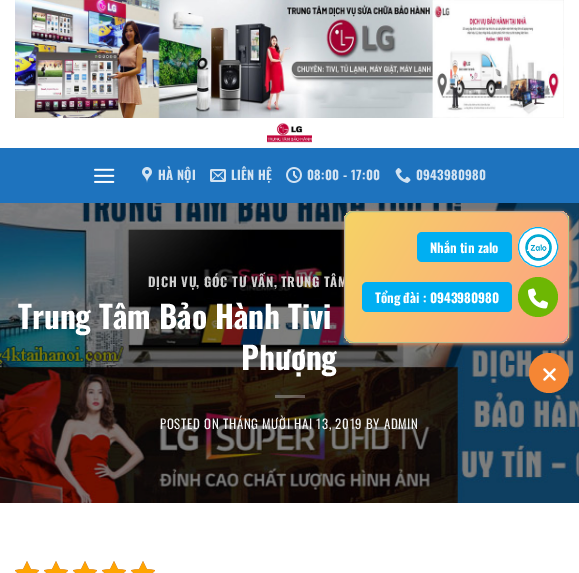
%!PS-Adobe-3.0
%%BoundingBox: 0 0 579 573
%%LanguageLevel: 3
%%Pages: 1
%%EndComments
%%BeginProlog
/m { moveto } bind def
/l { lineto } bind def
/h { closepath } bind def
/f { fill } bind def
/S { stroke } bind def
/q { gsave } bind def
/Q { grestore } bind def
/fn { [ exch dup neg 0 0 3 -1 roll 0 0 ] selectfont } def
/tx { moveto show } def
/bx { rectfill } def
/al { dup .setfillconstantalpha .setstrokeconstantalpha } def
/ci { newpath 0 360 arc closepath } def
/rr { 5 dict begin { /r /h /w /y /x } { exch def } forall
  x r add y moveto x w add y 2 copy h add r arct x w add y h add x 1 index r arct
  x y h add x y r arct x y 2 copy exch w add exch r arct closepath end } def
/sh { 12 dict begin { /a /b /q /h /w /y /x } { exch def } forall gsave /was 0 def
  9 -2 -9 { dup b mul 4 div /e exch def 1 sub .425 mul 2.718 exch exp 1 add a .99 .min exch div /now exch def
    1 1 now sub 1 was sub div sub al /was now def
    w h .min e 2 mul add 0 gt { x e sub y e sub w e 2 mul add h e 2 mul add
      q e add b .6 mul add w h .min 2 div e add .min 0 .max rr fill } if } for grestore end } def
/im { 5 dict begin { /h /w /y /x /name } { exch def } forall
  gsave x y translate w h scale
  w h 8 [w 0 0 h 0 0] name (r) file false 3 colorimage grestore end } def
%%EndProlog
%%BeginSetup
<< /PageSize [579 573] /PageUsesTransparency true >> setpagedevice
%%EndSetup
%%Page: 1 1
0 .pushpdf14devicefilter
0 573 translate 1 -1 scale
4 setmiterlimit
1 setgray
0 0 579 573 bx
(image0.raw) 15 0 549 118 im
(image1.raw) 267 123 45 20 im
0.118 0.451 0.745 setrgbcolor
0 148 579 55 bx
(image2.raw) 94 168 21 15 im
(image3.raw) 142 167 10 16 im
/Oswald-Bold 12.75 fn
0.824 0.89 0.949 setrgbcolor
158 180 m 0.25 0 (HÀ NỘI) ashow
(image4.raw) 210 169 16 13 im
231 180 m 0.25 0 (LIÊN HỆ) ashow
(image5.raw) 286 167 16 16 im
307 180 m 0.25 0 (08:00 - 17:00) ashow
(image6.raw) 395 168 16 15 im
416 180 m 0.25 0 (0943980980) ashow
(image7.raw) 0 203 579 300 im
/Oswald-Bold 12.9 fn
0.804 setgray
148 287 m 0.65 0 (DỊCH VỤ) ashow
196 287 m 0.65 0 (,) ashow
204 287 m 0.65 0 (GÓC TƯ VẤN) ashow
274 287 m 0.65 0 (,) ashow
0.827 0.82 0.82 setrgbcolor
281 287 m 0.65 0 (TRUNG TÂM) ashow
/Oswald-Bold 31.25 fn
1 setgray
(Trung Tâm Bảo Hành Tivi) 18 329 tx
(Phượng) 241 370 tx
0.3 al
275 395 30 3 bx
/Oswald-Regular 12.9 fn
1 al
0.945 setgray
160 429 m 0.65 0 (POSTED ON THÁNG MƯỜI HAI 13, 2019 BY ADMIN) ashow
(image8.raw) 15 561 24 12 im
(image8.raw) 44 561 24 12 im
(image8.raw) 73 561 24 12 im
(image8.raw) 102 561 24 12 im
(image8.raw) 131 561 24 12 im
(image9.raw) 15 561 24 12 im
(image9.raw) 44 561 24 12 im
(image9.raw) 73 561 24 12 im
(image9.raw) 102 561 24 12 im
(image9.raw) 131 561 24 12 im
0.984 0.522 0.263 setrgbcolor
345 212 225 132 10 2 1 sh
q
344 211 225 132 10 rr clip newpath
q 345 211 m 568 211 l 568 212 l 345 212 l h clip newpath
<< /ShadingType 2 /ColorSpace /DeviceRGB /Coords [345 82 568 212] /Extend [true true] /Function << /FunctionType 2 /Domain [0 1] /C0 [0.965 0.827 0.396] /C1 [0.992 0.627 0.522] /N 1 >> >> shfill Q
q 344 212 m 345 212 l 345 342 l 344 342 l h clip newpath
<< /ShadingType 2 /ColorSpace /DeviceRGB /Coords [122 212 345 342] /Extend [true true] /Function << /FunctionType 2 /Domain [0 1] /C0 [0.965 0.827 0.396] /C1 [0.992 0.627 0.522] /N 1 >> >> shfill Q
q 345 212 m 568 212 l 568 342 l 345 342 l h clip newpath
<< /ShadingType 2 /ColorSpace /DeviceRGB /Coords [345 212 568 342] /Extend [true true] /Function << /FunctionType 2 /Domain [0 1] /C0 [0.965 0.827 0.396] /C1 [0.992 0.627 0.522] /N 1 >> >> shfill Q
q 568 212 m 569 212 l 569 342 l 568 342 l h clip newpath
<< /ShadingType 2 /ColorSpace /DeviceRGB /Coords [568 212 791 342] /Extend [true true] /Function << /FunctionType 2 /Domain [0 1] /C0 [0.965 0.827 0.396] /C1 [0.992 0.627 0.522] /N 1 >> >> shfill Q
q 345 342 m 568 342 l 568 343 l 345 343 l h clip newpath
<< /ShadingType 2 /ColorSpace /DeviceRGB /Coords [345 342 568 472] /Extend [true true] /Function << /FunctionType 2 /Domain [0 1] /C0 [0.965 0.827 0.396] /C1 [0.992 0.627 0.522] /N 1 >> >> shfill Q
Q
0.29 al
0 0.686 0.933 setrgbcolor
344.5 211.5 224 131 9.5 rr S
1 al
0 0.686 0.949 setrgbcolor
417 232 95 30 5 rr f
/Oswald-Bold 13 fn
1 setgray
(Nhắn tin zalo) 430 253 tx
538 247 20 ci f
(image10.raw) 525 234 27 27 im
0 0.686 0.933 setrgbcolor
538 247 19.5 ci S
0 0.686 0.949 setrgbcolor
362 282 150 30 5 rr f
1 setgray
(Tổng đài : 0943980980) 375 303 tx
0.427 0.718 0.012 setrgbcolor
538 297 20 ci f
(image11.raw) 528 288 20 21 im
0.961 0.525 0.204 setrgbcolor
549 373 20 ci f
(image12.raw) 543 368 13 13 im
.poppdf14devicefilter showpage
%%EOF
